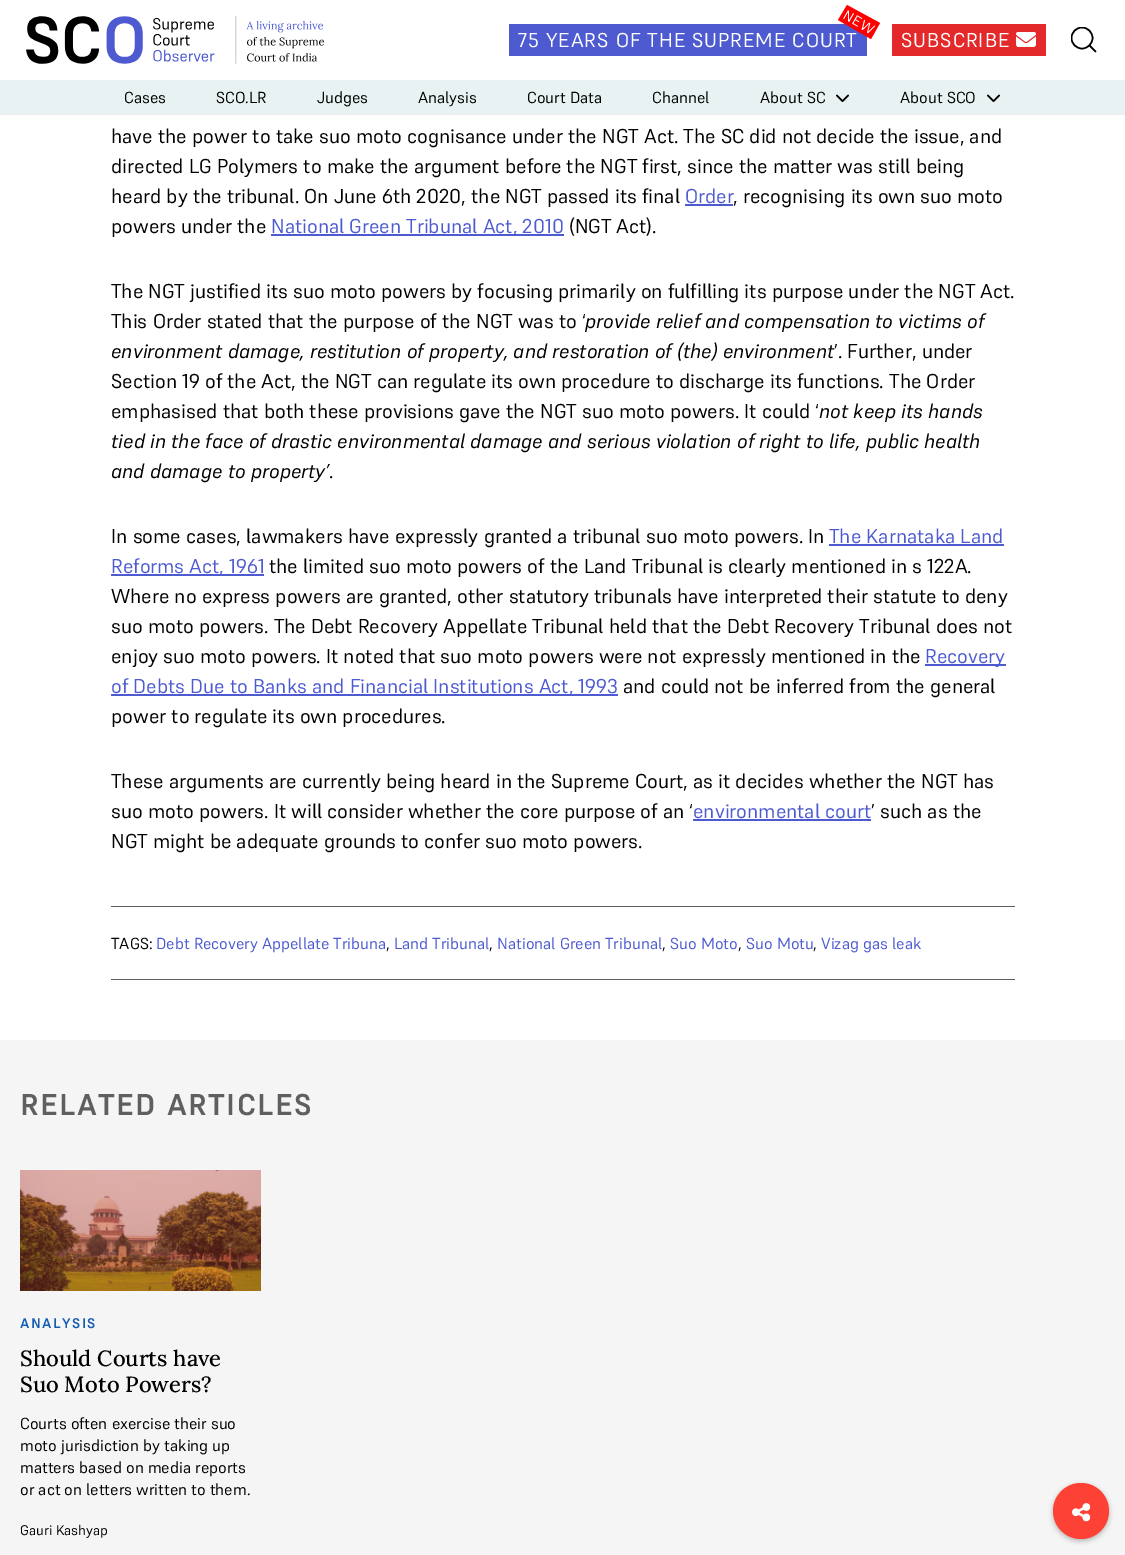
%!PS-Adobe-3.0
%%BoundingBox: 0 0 1125 1555
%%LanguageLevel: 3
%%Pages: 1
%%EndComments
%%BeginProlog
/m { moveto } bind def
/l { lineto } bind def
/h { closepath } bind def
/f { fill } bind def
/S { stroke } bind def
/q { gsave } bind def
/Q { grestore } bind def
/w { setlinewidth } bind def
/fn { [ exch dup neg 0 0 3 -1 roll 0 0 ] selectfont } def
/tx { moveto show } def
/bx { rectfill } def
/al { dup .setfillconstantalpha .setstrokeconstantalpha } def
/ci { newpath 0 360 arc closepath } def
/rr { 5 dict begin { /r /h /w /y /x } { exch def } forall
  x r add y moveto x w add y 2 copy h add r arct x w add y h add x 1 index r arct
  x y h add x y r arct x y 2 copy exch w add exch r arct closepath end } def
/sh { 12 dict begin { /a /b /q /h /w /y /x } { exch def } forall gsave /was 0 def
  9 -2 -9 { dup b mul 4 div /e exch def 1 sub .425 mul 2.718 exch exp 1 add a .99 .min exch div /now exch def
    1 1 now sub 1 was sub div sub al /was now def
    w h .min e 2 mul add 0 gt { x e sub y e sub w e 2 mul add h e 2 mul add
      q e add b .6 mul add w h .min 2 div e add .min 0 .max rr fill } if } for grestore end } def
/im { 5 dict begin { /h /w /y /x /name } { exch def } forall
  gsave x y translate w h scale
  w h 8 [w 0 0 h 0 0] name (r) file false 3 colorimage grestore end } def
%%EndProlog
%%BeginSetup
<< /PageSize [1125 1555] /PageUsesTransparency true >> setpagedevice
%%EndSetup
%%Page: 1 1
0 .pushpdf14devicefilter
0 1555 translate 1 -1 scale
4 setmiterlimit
1 setgray
0 0 1125 1555 bx
0.929 setgray
0 114 1125 1 bx
(image0.raw) 26 16 298 48 im
0.302 0.353 0.816 setrgbcolor
509 24 358 32 bx
/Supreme-Regular 20 fn
1 setgray
518 47 m 1 0 (75 YEARS OF THE SUPREME COURT) ashow
1 0 0 setrgbcolor
847 5 m 880 23 l 871 39 l 838 20 l h f
/Supreme-Regular 14 fn
1 setgray
q 842 18 translate 30 rotate 0 0 m 1 0 (NEW) ashow Q
0.89 0.161 0.161 setrgbcolor
892 24 154 32 bx
/Supreme-Regular 20 fn
1 setgray
901 47 m 1 0 (SUBSCRIBE) ashow
(image1.raw) 1016 32 20 15 im
q
1071 27 26 26 rectclip
0 setgray
1.5 w
1082 38 10.5 ci S
Q
0 setgray
1.5 w
1 setlinecap
1089.5 45.5 m 1095.5 51.5 l S
0.914 0.949 0.949 setrgbcolor
0 80 1125 34 bx
/Supreme-Regular 16 fn
0 setgray
(Cases) 124 103 tx
(SCO.LR) 216 103 tx
(Judges) 317 103 tx
(Analysis) 418 103 tx
(Court Data) 527 103 tx
(Channel) 652 103 tx
(About SC) 760 103 tx
(image2.raw) 836 94 13 8 im
(About SCO) 900 103 tx
(image2.raw) 987 94 13 8 im
/Supreme-Regular 20 fn
(have the power to take suo moto cognisance under the NGT Act. The SC did not decide the issue, and) 111 143 tx
(directed LG Polymers to make the argument before the NGT first, since the matter was still being) 111 173 tx
(heard by the tribunal. On June 6th 2020, the NGT passed its final) 111 203 tx
0.302 0.353 0.816 setrgbcolor
(Order) 685 203 tx
685 204 48 2 bx
0 setgray
(, recognising its own suo moto) 733 203 tx
(powers under the) 111 233 tx
0.302 0.353 0.816 setrgbcolor
271 234 293 2 bx
(National Green Tribunal Act, 2010) 271 233 tx
0 setgray
(\(NGT Act\).) 569 233 tx
(The NGT justified its suo moto powers by focusing primarily on fulfilling its purpose under the NGT Act.) 111 298 tx
(This Order stated that the purpose of the NGT was to ‘) 111 328 tx
/Supreme-Italic 20 fn
(provide relief and compensation to victims of) 585 328 tx
(environment damage, restitution of property, and restoration of \(the\) environment) 111 358 tx
/Supreme-Regular 20 fn
(’. Further, under) 834 358 tx
(Section 19 of the Act, the NGT can regulate its own procedure to discharge its functions. The Order) 111 388 tx
(emphasised that both these provisions gave the NGT suo moto powers. It could ‘) 111 418 tx
/Supreme-Italic 20 fn
(not keep its hands) 819 418 tx
(tied in the face of drastic environmental damage and serious violation of right to life, public health) 111 448 tx
(and damage to property’) 111 478 tx
/Supreme-Regular 20 fn
(.) 329 478 tx
(In some cases, lawmakers have expressly granted a tribunal suo moto powers. In) 111 543 tx
0.302 0.353 0.816 setrgbcolor
(The Karnataka Land) 829 543 tx
829 544 175 2 bx
111 574 153 2 bx
(Reforms Act, 1961) 111 573 tx
0 setgray
(the limited suo moto powers of the Land Tribunal is clearly mentioned in s 122A.) 269 573 tx
(Where no express powers are granted, other statutory tribunals have interpreted their statute to deny) 111 603 tx
(suo moto powers. The Debt Recovery Appellate Tribunal held that the Debt Recovery Tribunal does not) 111 633 tx
(enjoy suo moto powers. It noted that suo moto powers were not expressly mentioned in the) 111 663 tx
0.302 0.353 0.816 setrgbcolor
925 664 81 2 bx
(Recovery) 925 663 tx
111 694 507 2 bx
(of Debts Due to Banks and Financial Institutions Act, 1993) 111 693 tx
0 setgray
(and could not be inferred from the general) 623 693 tx
(power to regulate its own procedures.) 111 723 tx
(These arguments are currently being heard in the Supreme Court, as it decides whether the NGT has) 111 788 tx
(suo moto powers. It will consider whether the core purpose of an ‘) 111 818 tx
0.302 0.353 0.816 setrgbcolor
(environmental court) 693 818 tx
693 819 178 2 bx
0 setgray
(’ such as the) 871 818 tx
(NGT might be adequate grounds to confer suo moto powers.) 111 848 tx
0.373 setgray
111 906 904 1 bx
111 979 904 1 bx
/Supreme-Regular 16 fn
0 setgray
(TAGS:) 111 949 tx
0.302 0.353 0.816 setrgbcolor
(Debt Recovery Appellate Tribuna) 156 949 tx
0 setgray
(,) 386 949 tx
0.302 0.353 0.816 setrgbcolor
(Land Tribunal) 394 949 tx
0 setgray
(,) 489 949 tx
0.302 0.353 0.816 setrgbcolor
(National Green Tribunal) 497 949 tx
0 setgray
(,) 662 949 tx
0.302 0.353 0.816 setrgbcolor
(Suo Moto) 670 949 tx
0 setgray
(,) 738 949 tx
0.302 0.353 0.816 setrgbcolor
(Suo Motu) 746 949 tx
0 setgray
(,) 813 949 tx
0.302 0.353 0.816 setrgbcolor
(Vizag gas leak) 821 949 tx
0.961 setgray
0 1040 1125 515 bx
/Supreme-Bold 30 fn
0.373 setgray
20 1115 m 1.5 0 (RELATED ARTICLES) ashow
(image3.raw) 20 1170 241 121 im
/Supreme-Bold 14 fn
0.078 0.369 0.706 setrgbcolor
20 1328 m 1.5 0 (ANALYSIS) ashow
/Lora-Medium 22 fn
0 setgray
(Should Courts have) 20 1366 tx
(Suo Moto Powers?) 20 1392 tx
/Supreme-Regular 16 fn
(Courts often exercise their suo) 20 1429 tx
(moto jurisdiction by taking up) 20 1451 tx
(matters based on media reports) 20 1473 tx
(or act on letters written to them.) 20 1495 tx
/Supreme-Regular 14 fn
(Gauri Kashyap) 20 1535 tx
1053 1485 56 56 28 2.5 0.26 sh
0.992 0.259 0.208 setrgbcolor
1081 1511 28 ci f
(image4.raw) 1072 1503 19 19 im
.poppdf14devicefilter showpage
%%EOF
